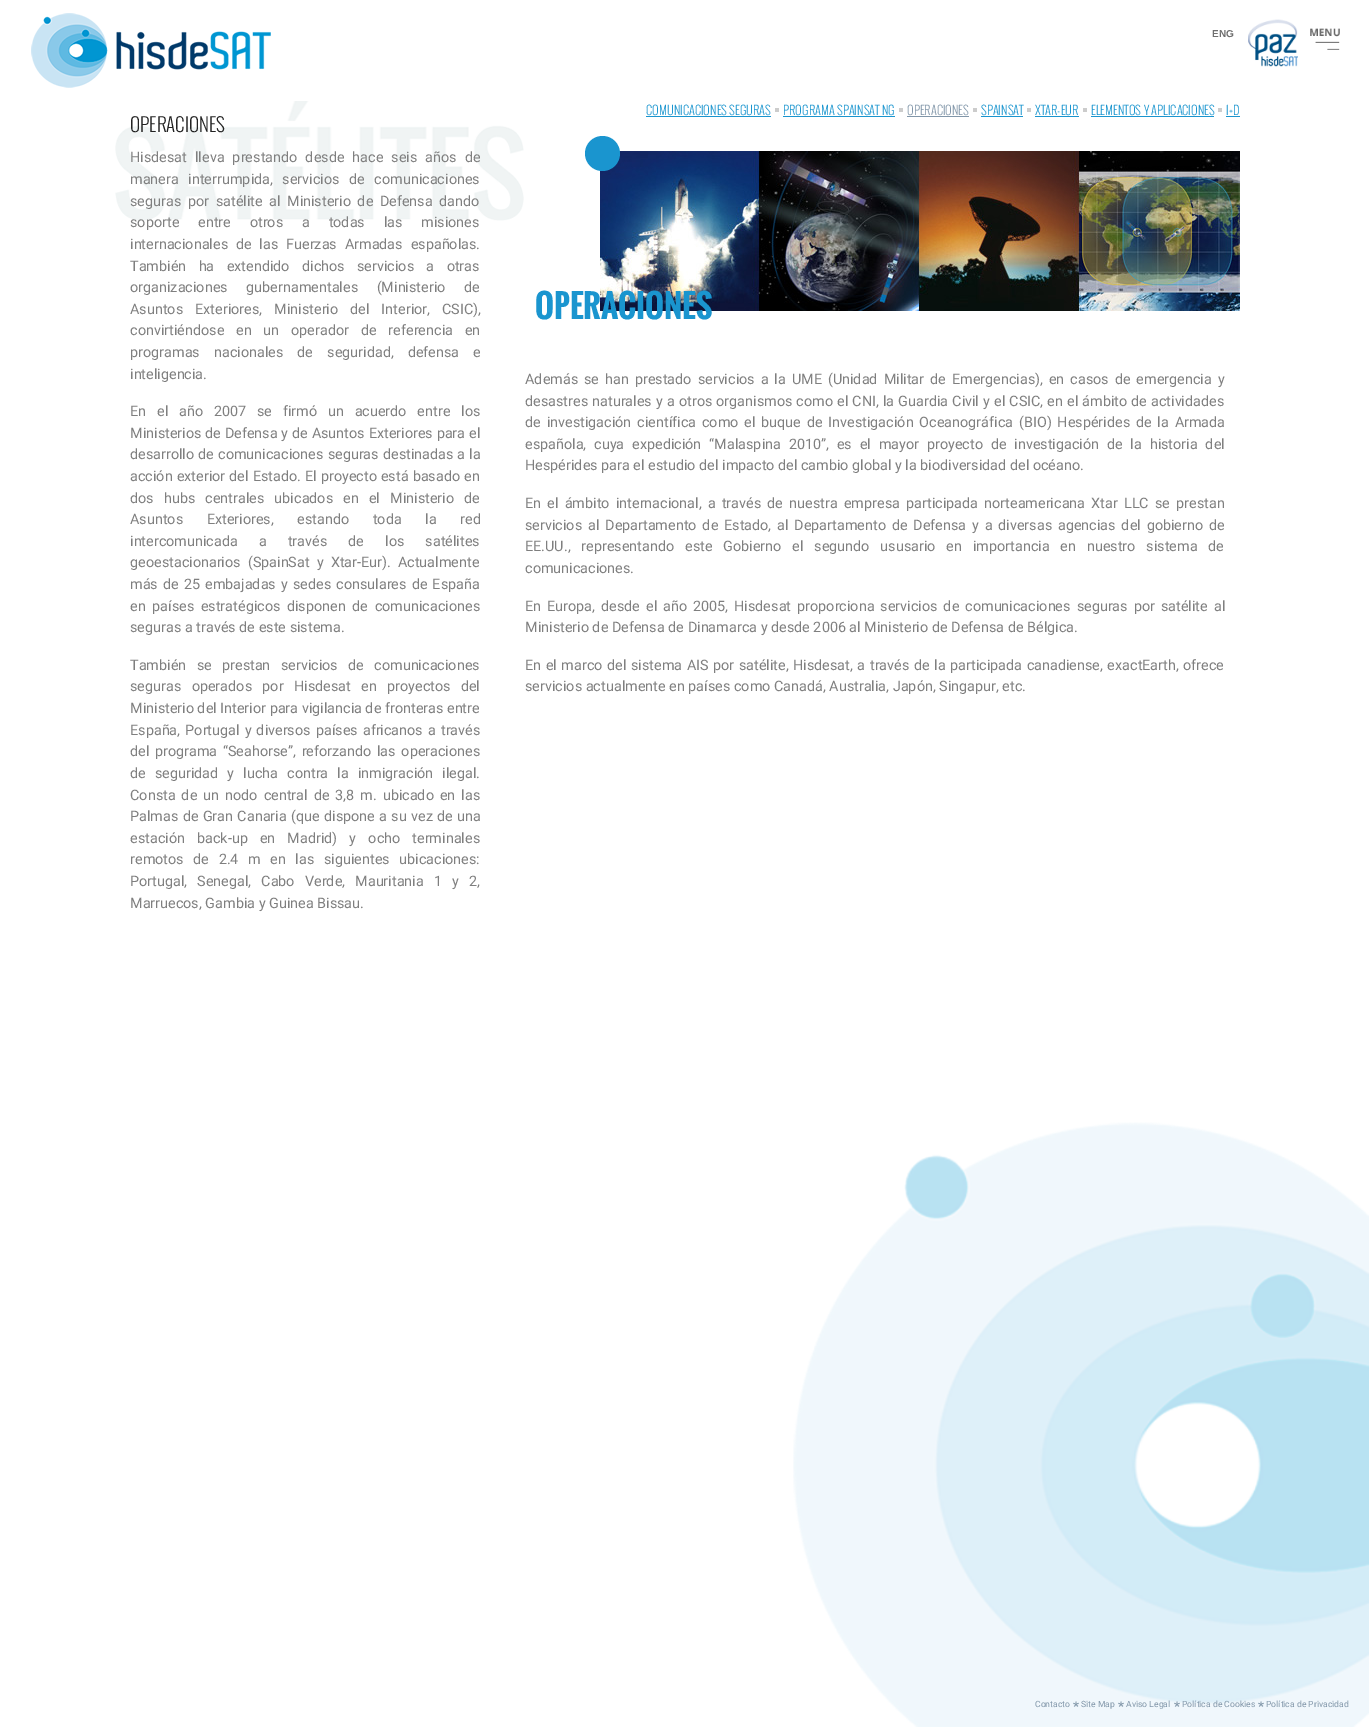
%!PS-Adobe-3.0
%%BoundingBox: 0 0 1369 1727
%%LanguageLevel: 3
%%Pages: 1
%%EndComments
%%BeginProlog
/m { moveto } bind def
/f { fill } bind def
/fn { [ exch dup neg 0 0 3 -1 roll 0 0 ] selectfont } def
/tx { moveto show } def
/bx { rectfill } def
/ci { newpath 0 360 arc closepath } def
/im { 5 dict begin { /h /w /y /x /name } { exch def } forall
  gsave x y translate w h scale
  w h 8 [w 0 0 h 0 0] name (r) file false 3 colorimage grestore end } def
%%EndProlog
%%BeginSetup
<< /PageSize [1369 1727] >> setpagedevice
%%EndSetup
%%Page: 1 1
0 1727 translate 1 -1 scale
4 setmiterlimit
1 setgray
0 0 1369 1727 bx
(image0.raw) 793 1122 576 605 im
(image1.raw) 31 13 240 75 im
/LiberationSans-Bold 10 fn
0.435 setgray
(ENG) 1212 37 tx
(image2.raw) 1248 19 50 48 im
(image3.raw) 1310 28 30 22 im
(image4.raw) 115 101 409 120 im
/Oswald-Light 18.75 fn
0.133 setgray
(OPERACIONES) 130 132 tx
/Roboto-Regular 14.4 fn
0.498 setgray
130 162 m 4.5 0 32 (Hisdesat lleva prestando desde hace seis años de) widthshow
130 184 m 6 0 32 (manera interrumpida, servicios de comunicaciones) widthshow
130 206 m 3 0 32 (seguras por satélite al Ministerio de Defensa dando) widthshow
130 227 m 15.25 0 32 (soporte entre otros a todas las misiones) widthshow
130 249 m 4.25 0 32 (internacionales de las Fuerzas Armadas españolas.) widthshow
130 271 m 8.75 0 32 (También ha extendido dichos servicios a otras) widthshow
130 292 m 15 0 32 (organizaciones gubernamentales \(Ministerio de) widthshow
130 314 m 8.5 0 32 (Asuntos Exteriores, Ministerio del Interior, CSIC\),) widthshow
130 335 m 8.25 0 32 (convirtiéndose en un operador de referencia en) widthshow
130 357 m 10.5 0 32 (programas nacionales de seguridad, defensa e) widthshow
(inteligencia.) 130 379 tx
130 416 m 7.25 0 32 (En el año 2007 se firmó un acuerdo entre los) widthshow
130 438 m 0.25 0 32 (Ministerios de Defensa y de Asuntos Exteriores para el) widthshow
130 459 m 0.5 0 32 (desarrollo de comunicaciones seguras destinadas a la) widthshow
130 481 m 0.5 0 32 (acción exterior del Estado. El proyecto está basado en) widthshow
130 503 m 6.5 0 32 (dos hubs centrales ubicados en el Ministerio de) widthshow
130 524 m 20 0 32 (Asuntos Exteriores, estando toda la red) widthshow
130 546 m 17.5 0 32 (intercomunicada a través de los satélites) widthshow
130 567 m 3.5 0 32 (geoestacionarios \(SpainSat y Xtar-Eur\). Actualmente) widthshow
130 589 m 1.5 0 32 (más de 25 embajadas y sedes consulares de España) widthshow
130 611 m 3 0 32 (en países estratégicos disponen de comunicaciones) widthshow
(seguras a través de este sistema.) 130 632 tx
130 670 m 6.75 0 32 (También se prestan servicios de comunicaciones) widthshow
130 691 m 6.75 0 32 (seguras operados por Hisdesat en proyectos del) widthshow
(Ministerio del Interior para vigilancia de fronteras entre) 130 713 tx
130 735 m 1.5 0 32 (España, Portugal y diversos países africanos a través) widthshow
130 756 m 2 0 32 (del programa “Seahorse”, reforzando las operaciones) widthshow
130 778 m 5.5 0 32 (de seguridad y lucha contra la inmigración ilegal.) widthshow
130 800 m 2.4 0 32 (Consta de un nodo central de 3,8 m. ubicado en las) widthshow
130 821 m 0.75 0 32 (Palmas de Gran Canaria \(que dispone a su vez de una) widthshow
130 843 m 8.5 0 32 (estación back-up en Madrid\) y ocho terminales) widthshow
130 864 m 6 0 32 (remotos de 2.4 m en las siguientes ubicaciones:) widthshow
130 886 m 6.5 0 32 (Portugal, Senegal, Cabo Verde, Mauritania 1 y 2,) widthshow
(Marruecos, Gambia y Guinea Bissau.) 130 908 tx
/Oswald-Light 12.25 fn
0.102 0.584 0.812 setrgbcolor
(COMUNICACIONES SEGURAS) 646 115 tx
0.8 setgray
775 108 4 4 bx
0.102 0.584 0.812 setrgbcolor
646 116 125 1 bx
(PROGRAMA SPAINSAT NG) 783 115 tx
0.8 setgray
899 108 4 4 bx
0.102 0.584 0.812 setrgbcolor
783 116 112 1 bx
0.506 0.588 0.663 setrgbcolor
(OPERACIONES) 907 115 tx
0.8 setgray
973 108 4 4 bx
0.506 0.588 0.663 setrgbcolor
907 116 62 1 bx
0.102 0.584 0.812 setrgbcolor
(SPAINSAT) 981 115 tx
0.8 setgray
1027 108 4 4 bx
0.102 0.584 0.812 setrgbcolor
981 116 42 1 bx
(XTAR-EUR) 1035 115 tx
0.8 setgray
1083 108 4 4 bx
0.102 0.584 0.812 setrgbcolor
1035 116 44 1 bx
(ELEMENTOS Y APLICACIONES) 1091 115 tx
0.8 setgray
1218 108 4 4 bx
0.102 0.584 0.812 setrgbcolor
1091 116 123 1 bx
(I+D) 1226 115 tx
1226 116 14 1 bx
(image5.raw) 600 151 640 160 im
602.5 153.5 17.5 ci f
/Oswald-Bold 31.75 fn
(OPERACIONES) 535 319 tx
/Roboto-Regular 14.4 fn
0.498 setgray
525 384 m 2.4 0 32 (Además se han prestado servicios a la UME \(Unidad Militar de Emergencias\), en casos de emergencia y) widthshow
525 406 m 0.5 0 32 (desastres naturales y a otros organismos como el CNI, la Guardia Civil y el CSIC, en el ámbito de actividades) widthshow
525 427 m 2.25 0 32 (de investigación científica como el buque de Investigación Oceanográfica \(BIO\) Hespérides de la Armada) widthshow
525 449 m 4.25 0 32 (española, cuya expedición “Malaspina 2010”, es el mayor proyecto de investigación de la historia del) widthshow
(Hespérides para el estudio del impacto del cambio global y la biodiversidad del océano.) 525 470 tx
525 508 m 2.6 0 32 (En el ámbito internacional, a través de nuestra empresa participada norteamericana Xtar LLC se prestan) widthshow
525 530 m 2.25 0 32 (servicios al Departamento de Estado, al Departamento de Defensa y a diversas agencias del gobierno de) widthshow
525 551 m 7.25 0 32 (EE.UU., representando este Gobierno el segundo ususario en importancia en nuestro sistema de) widthshow
(comunicaciones.) 525 573 tx
525 611 m 2.4 0 32 (En Europa, desde el año 2005, Hisdesat proporciona servicios de comunicaciones seguras por satélite al) widthshow
(Ministerio de Defensa de Dinamarca y desde 2006 al Ministerio de Defensa de Bélgica.) 525 632 tx
525 670 m 1 0 32 (En el marco del sistema AIS por satélite, Hisdesat, a través de la participada canadiense, exactEarth, ofrece) widthshow
(servicios actualmente en países como Canadá, Australia, Japón, Singapur, etc.) 525 691 tx
/Roboto-Regular 8.6 fn
0.506 0.588 0.663 setrgbcolor
(Contacto) 1035 1707 tx
(image6.raw) 1073 1701 6 6 im
(Site Map) 1081 1707 tx
(image6.raw) 1118 1701 6 6 im
(Aviso Legal) 1126 1707 tx
(image7.raw) 1174 1701 6 6 im
(Política de Cookies) 1182 1707 tx
(image6.raw) 1258 1701 6 6 im
(Política de Privacidad) 1266 1707 tx
showpage
%%EOF
